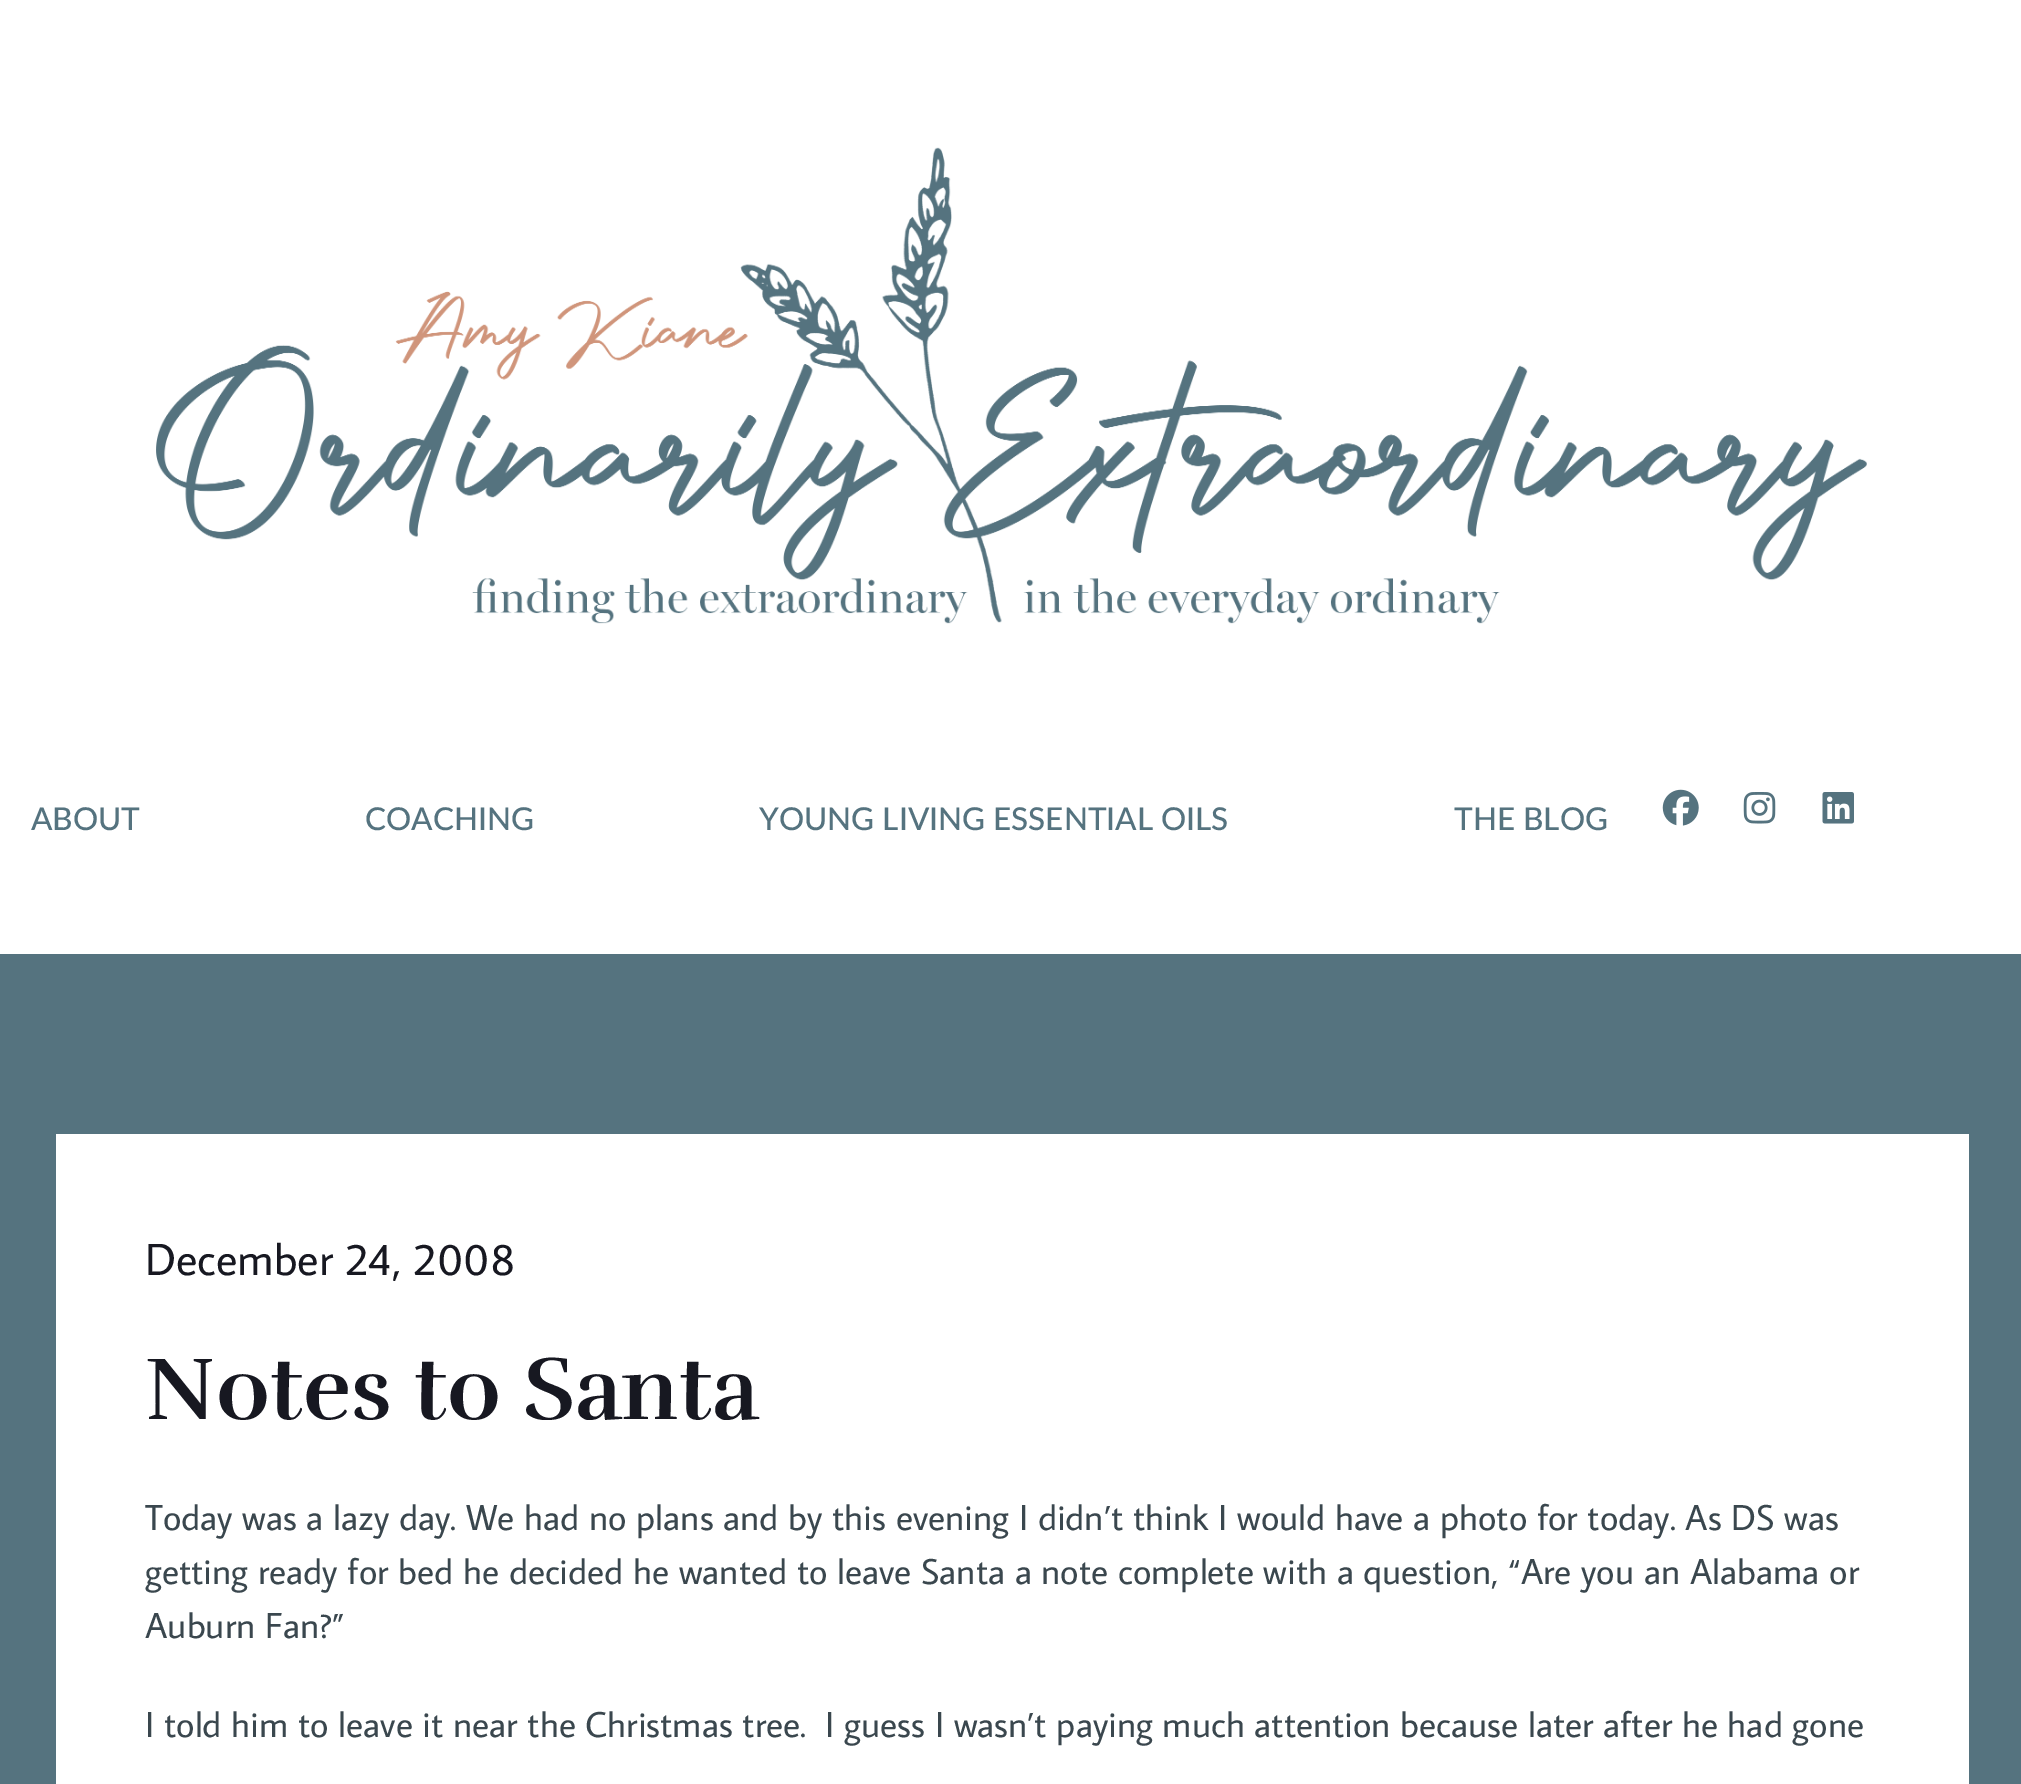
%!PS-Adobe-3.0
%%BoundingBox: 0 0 2021 1784
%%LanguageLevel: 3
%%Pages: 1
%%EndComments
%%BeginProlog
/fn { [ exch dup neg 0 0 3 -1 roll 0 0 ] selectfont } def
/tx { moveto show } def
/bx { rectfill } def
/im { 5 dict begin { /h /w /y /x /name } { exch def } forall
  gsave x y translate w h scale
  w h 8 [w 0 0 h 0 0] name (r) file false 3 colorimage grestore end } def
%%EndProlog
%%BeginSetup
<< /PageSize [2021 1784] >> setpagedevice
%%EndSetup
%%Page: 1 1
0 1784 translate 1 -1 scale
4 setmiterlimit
1 setgray
0 0 2021 1784 bx
(image0.raw) 156 147 1711 477 im
/Lato-Medium 31.5 fn
0.333 0.451 0.498 setrgbcolor
(ABOUT) 31 830 tx
(COACHING) 365 830 tx
(YOUNG LIVING ESSENTIAL OILS) 759 830 tx
(THE BLOG) 1454 830 tx
(image1.raw) 1662 789 37 37 im
(image2.raw) 1743 792 33 32 im
(image3.raw) 1822 792 32 32 im
0 954 2021 830 bx
1 setgray
56 1134 1913 650 bx
/AverageSans-Regular 45 fn
0.09 0.094 0.129 setrgbcolor
(December 24, 2008) 145 1275 tx
/Rufina-Bold 90 fn
(Notes to Santa) 145 1419 tx
/AverageSans-Regular 36 fn
0.227 0.278 0.306 setrgbcolor
(Today was a lazy day. We had no plans and by this evening I didn’t think I would have a photo for today. As DS was) 145 1530 tx
(getting ready for bed he decided he wanted to leave Santa a note complete with a question, “Are you an Alabama or) 145 1584 tx
(Auburn Fan?”) 145 1638 tx
(I told him to leave it near the Christmas tree.  I guess I wasn’t paying much attention because later after he had gone) 145 1737 tx
showpage
%%EOF
